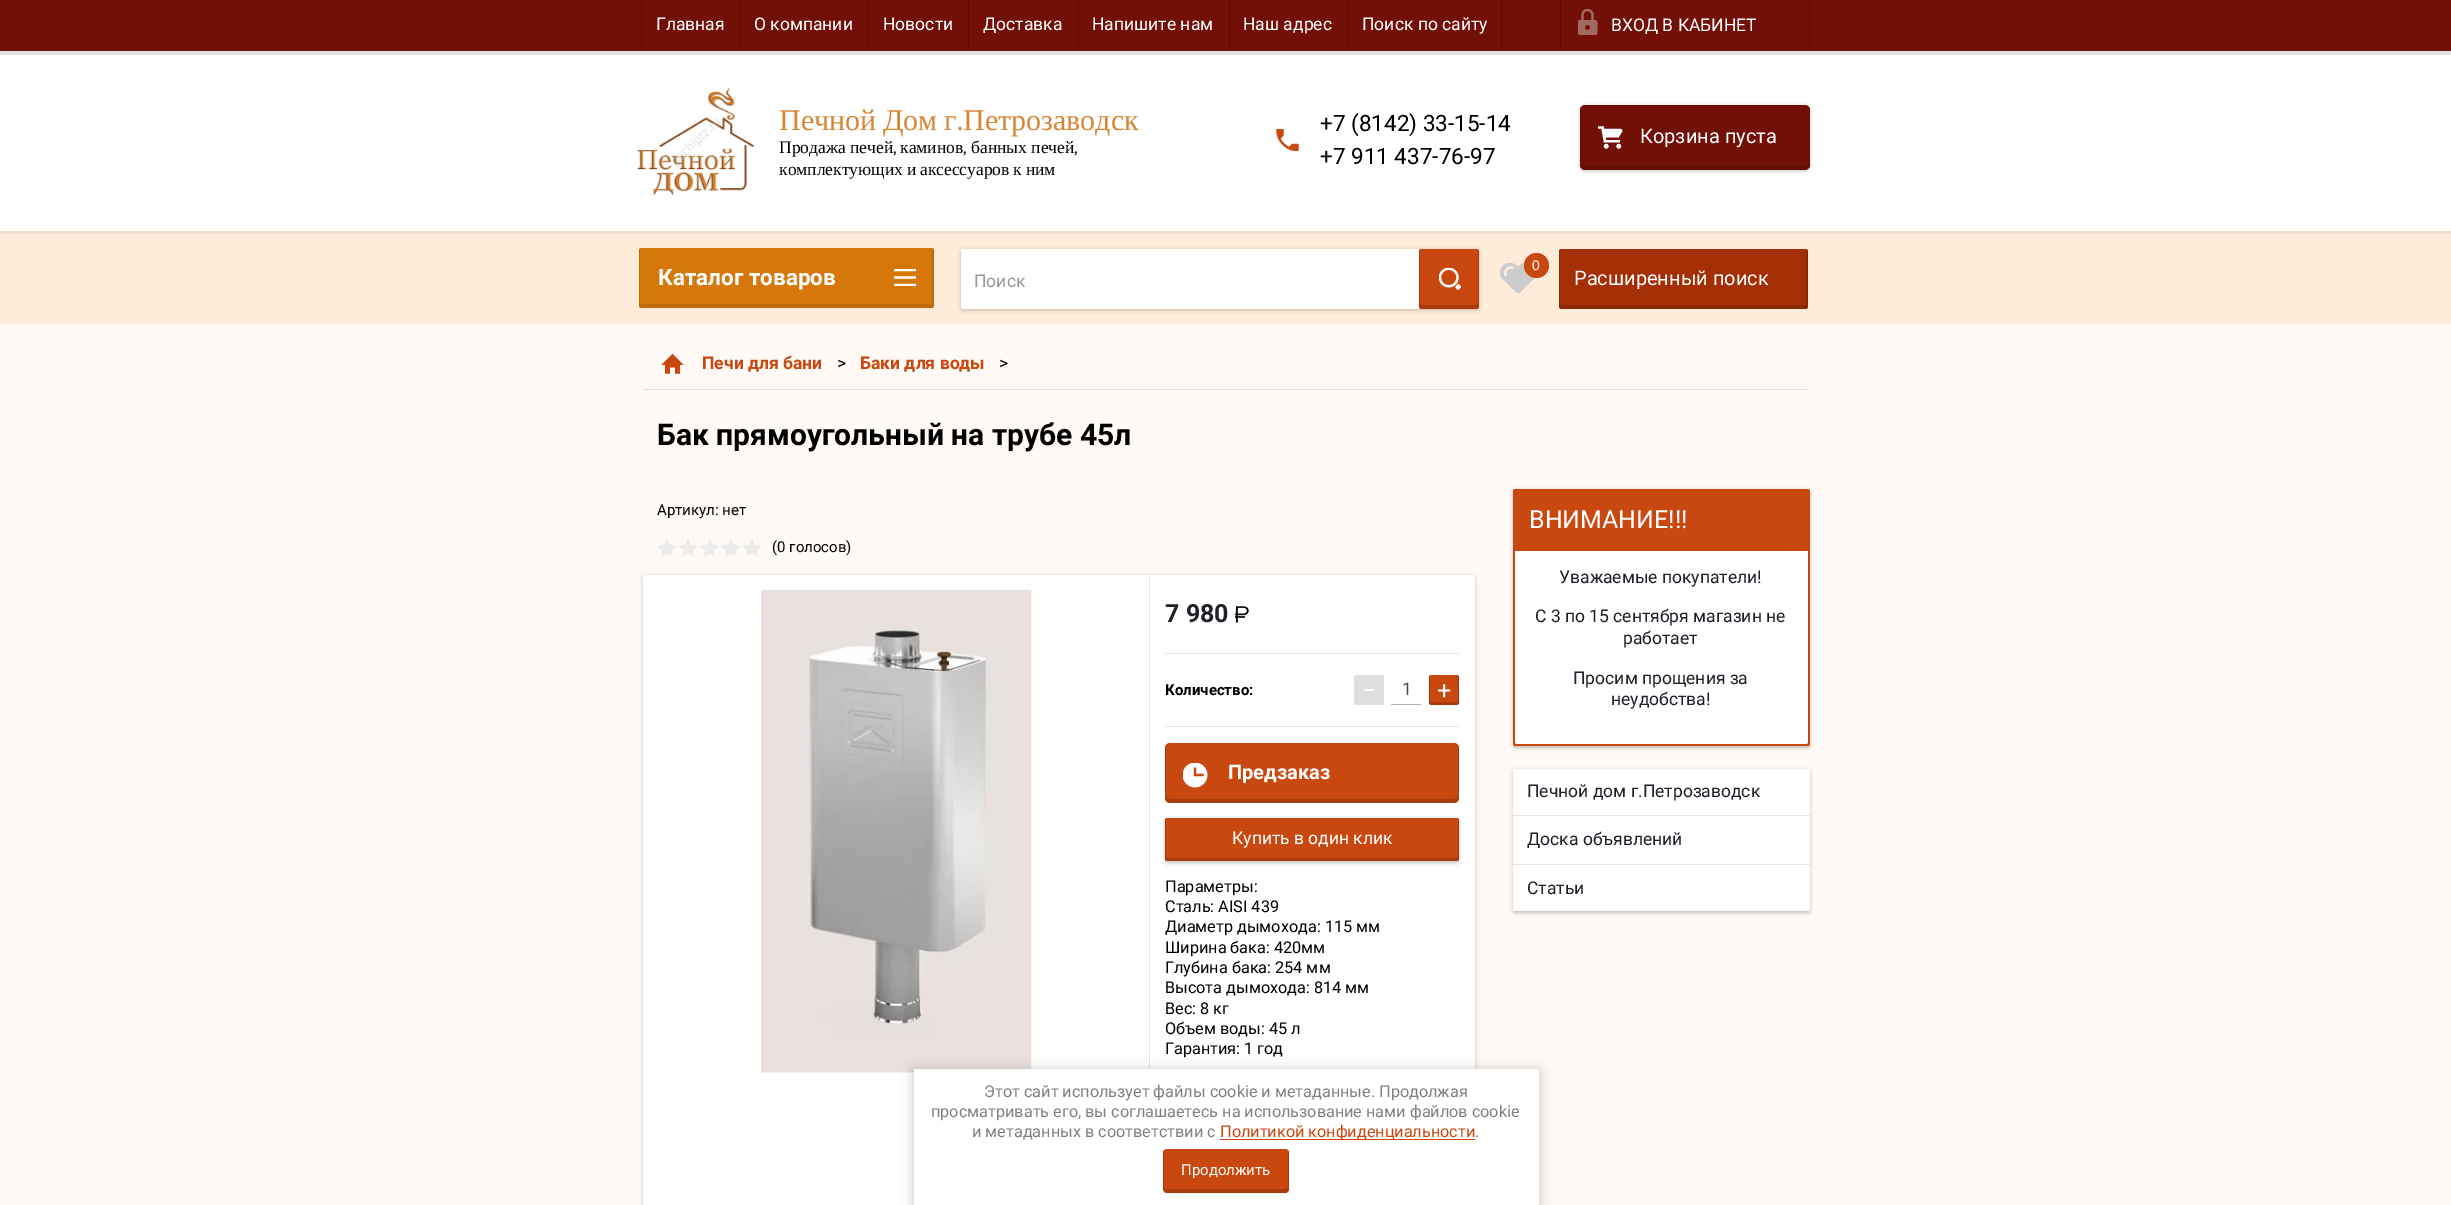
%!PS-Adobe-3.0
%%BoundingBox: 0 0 2451 1205
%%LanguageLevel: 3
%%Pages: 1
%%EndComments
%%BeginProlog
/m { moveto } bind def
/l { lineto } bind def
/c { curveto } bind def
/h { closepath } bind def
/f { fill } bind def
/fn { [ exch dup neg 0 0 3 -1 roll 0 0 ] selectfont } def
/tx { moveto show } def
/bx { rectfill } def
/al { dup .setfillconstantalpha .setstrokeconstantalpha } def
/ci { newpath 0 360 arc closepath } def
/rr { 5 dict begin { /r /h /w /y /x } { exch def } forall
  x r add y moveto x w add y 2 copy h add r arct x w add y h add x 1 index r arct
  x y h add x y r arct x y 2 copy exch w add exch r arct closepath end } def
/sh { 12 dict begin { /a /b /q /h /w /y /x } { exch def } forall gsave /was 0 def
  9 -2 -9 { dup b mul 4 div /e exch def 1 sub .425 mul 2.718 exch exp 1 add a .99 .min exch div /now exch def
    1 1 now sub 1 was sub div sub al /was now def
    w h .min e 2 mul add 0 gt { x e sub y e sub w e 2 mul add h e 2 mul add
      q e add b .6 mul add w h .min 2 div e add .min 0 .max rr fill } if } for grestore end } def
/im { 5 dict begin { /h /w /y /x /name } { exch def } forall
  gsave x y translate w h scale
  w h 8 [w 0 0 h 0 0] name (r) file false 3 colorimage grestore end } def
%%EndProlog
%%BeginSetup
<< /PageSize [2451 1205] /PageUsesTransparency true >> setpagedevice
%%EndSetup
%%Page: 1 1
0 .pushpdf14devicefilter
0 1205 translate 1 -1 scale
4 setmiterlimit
1 0.98 0.961 setrgbcolor
0 0 2451 1205 bx
1 setgray
0 55 2451 176 bx
0.878 setgray
0 51 2451 4 bx
0.447 0.059 0.027 setrgbcolor
0 0 2451 51 bx
0.357 0.047 0.024 setrgbcolor
641 0 1 51 bx
/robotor-Regular 17.5 fn
1 setgray
(Главная) 656 30 tx
0.357 0.047 0.024 setrgbcolor
739 0 1 51 bx
1 setgray
(О компании) 754 30 tx
0.357 0.047 0.024 setrgbcolor
868 0 1 51 bx
1 setgray
(Новости) 883 30 tx
0.357 0.047 0.024 setrgbcolor
968 0 1 51 bx
1 setgray
(Доставка) 983 30 tx
0.357 0.047 0.024 setrgbcolor
1078 0 1 51 bx
1 setgray
(Напишите нам) 1092 30 tx
0.357 0.047 0.024 setrgbcolor
1229 0 1 51 bx
1 setgray
(Наш адрес) 1243 30 tx
0.357 0.047 0.024 setrgbcolor
1348 0 1 51 bx
1 setgray
(Поиск по сайту) 1362 30 tx
0.357 0.047 0.024 setrgbcolor
1501 0 1 51 bx
1560 0 1 50 bx
(image0.raw) 1578 9 20 26 im
1 setgray
(ВХОД В КАБИНЕТ) 1611 31 tx
0.357 0.047 0.024 setrgbcolor
1809 0 1 50 bx
(image1.raw) 637 87 118 108 im
/LiberationSerif-Regular 30 fn
0.847 0.518 0.2 setrgbcolor
779 130 m -1 0 32 (Печной Дом г) widthshow
/Caladea-Regular 30 fn
(.) 957 130 tx
/LiberationSerif-Regular 30 fn
(Петрозаводск) 963 130 tx
/LiberationSerif-Regular 17.5 fn
0 setgray
(Продажа печей) 779 153 tx
/Caladea-Regular 17.5 fn
(,) 893 153 tx
/LiberationSerif-Regular 17.5 fn
(каминов) 900 153 tx
/Caladea-Regular 17.5 fn
(,) 963 153 tx
/LiberationSerif-Regular 17.5 fn
(банных печей) 971 153 tx
/Caladea-Regular 17.5 fn
(,) 1074 153 tx
/LiberationSerif-Regular 17.5 fn
779 175 m -0.5 0 32 (комплектующих и аксессуаров к ним) widthshow
/robotor-Regular 22.5 fn
(+7 \(8142\) 33-15-14) 1320 131 tx
(image2.raw) 1276 129 23 22 im
(+7 911 437-76-97) 1320 164 tx
1580 106 230 65 5 2 0.24 sh
0.447 0.059 0.027 setrgbcolor
1580 105 230 65 5 rr f
0.14 al
0 setgray
1581 107 m 1580 108 1580 109 1580 110 c 1580 165 l 1580 168 1582 170 1585 170 c 1805 170 l 1808 170 1810 168 1810 165 c 1810 110 l 1810 109 1810 108 1809 107 c 1809 162 l 1809 165 1807 166 1805 166 c 1585 166 l 1583 166 1581 165 1581 162 c h f
1 al
(image3.raw) 1598 126 25 23 im
/robotor-Regular 20 fn
1 setgray
(Корзина пуста) 1640 143 tx
0 324 2451 1 bx
1 0.922 0.855 setrgbcolor
0 234 2451 90 bx
0.941 0.867 0.804 setrgbcolor
0 231 2451 3 bx
(image4.raw) 1500 263 35 31 im
0.784 0.282 0.059 setrgbcolor
1536.5 265.5 12.5 ci f
/LiberationSans-Regular 14 fn
1 setgray
(0) 1532 270 tx
0 setgray
961 250 518 60 2.5 2 0.24 sh
1 setgray
961 249 518 60 2.5 rr f
/robotor-Regular 17.5 fn
0.6 setgray
(Поиск) 974 287 tx
0.784 0.282 0.059 setrgbcolor
1419 249 60 60 2.5 rr f
0.16 al
0 setgray
1420 249 m 1419 250 1419 251 1419 252 c 1419 306 l 1419 308 1420 309 1422 309 c 1476 309 l 1478 309 1479 308 1479 306 c 1479 252 l 1479 251 1479 250 1478 249 c 1478 304 l 1476 305 l 1421 305 l 1420 304 l h f
1 al
(image5.raw) 1439 268 22 22 im
0.647 0.184 0.02 setrgbcolor
1559 249 249 60 2.5 rr f
0.16 al
0 setgray
1560 249 m 1559 250 1559 251 1559 252 c 1559 306 l 1559 308 1560 309 1562 309 c 1806 309 l 1807 309 1808 308 1808 306 c 1808 252 l 1808 250 1807 249 1806 249 c 1806 304 l 1806 304 1806 305 1805 305 c 1561 305 l 1560 304 l h f
/robotor-Regular 20 fn
1 al
1 setgray
(Расширенный поиск) 1574 285 tx
0.882 0.886 0.89 setrgbcolor
643 389 1166 1 bx
(image6.raw) 661 354 23 20 im
/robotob-Bold 17.5 fn
0.784 0.282 0.059 setrgbcolor
(Печи для бани) 702 369 tx
/robotor-Regular 17.5 fn
0 setgray
(>) 837 369 tx
/robotob-Bold 17.5 fn
0.784 0.282 0.059 setrgbcolor
(Баки для воды) 860 369 tx
/robotor-Regular 17.5 fn
0 setgray
(>) 999 369 tx
/robotob-Bold 30 fn
(Бак прямоугольный на трубе 45л) 657 445 tx
/robotor-Regular 15 fn
(Артикул: нет) 657 515 tx
(image7.raw) 658 538 104 18 im
(\(0 голосов\)) 772 552 tx
643 576 832 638 2.5 2 0.24 sh
1 setgray
643 575 832 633 2.5 rr f
(image8.raw) 761 590 271 483 im
0.902 setgray
1149 575 m 1149 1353 l 1473 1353 l 1473 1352 l 1150 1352 l 1150 575 l h f
/robotob-Bold 25 fn
0.125 0.125 0.165 setrgbcolor
(7 980) 1165 622 tx
(image9.raw) 1235 606 14 17 im
0.898 setgray
1165 653 294 1 bx
1165 726 294 1 bx
/robotob-Bold 15 fn
0 setgray
(Количество:) 1165 695 tx
0.875 setgray
1354 675 30 30 2.5 rr f
/robotor-Regular 25 fn
1 setgray
(−) 1362 699 tx
0.698 setgray
1391 704 30 1 bx
/robotor-Regular 17.5 fn
0.282 setgray
(1) 1402 695 tx
0.784 0.282 0.059 setrgbcolor
1429 675 30 30 2.5 rr f
0.16 al
0 setgray
1430.5 675 m 1429.5 675.5 1429 676.5 1429 677.5 c 1429 702.5 l 1429 704 1430 705 1431.5 705 c 1456.5 705 l 1458 705 1459 704 1459 702.5 c 1459 677.5 l 1459 676 1458 675 1456.5 675 c 1453.5 675 l 1455.5 675 1457 675.5 1457 676 c 1458 689 l 1458 697.5 1458.5 700.5 1457.5 702 c 1456 703 1452.5 702 1444 702 c 1435 702 1432 703 1430.5 702 c 1429.5 701 1430 699 1430 693 c 1430 683 l 1429.5 680.5 1429.5 676 1430.5 675 c h f
/robotor-Regular 25 fn
1 al
1 setgray
(+) 1437 699 tx
0.784 0.282 0.059 setrgbcolor
1165 743 294 60 5 rr f
0.16 al
0 setgray
1166 745 m 1165 746 1165 747 1165 748 c 1165 798 l 1165 801 1167 803 1170 803 c 1454 803 l 1457 803 1459 801 1459 798 c 1459 748 l 1459 747 1459 746 1458 745 c 1458 795 l 1458 797 1456 799 1454 799 c 1170 799 l 1168 799 1166 797 1166 795 c h f
1 al
(image10.raw) 1183 763 25 25 im
/robotob-Bold 20 fn
1 setgray
(Предзаказ) 1228 779 tx
0 setgray
1165 819 294 44 2.5 2 0.24 sh
0.784 0.282 0.059 setrgbcolor
1165 818 294 43 2.5 rr f
0.16 al
0 setgray
1166 818 m 1165 819 1165 820 1165 820 c 1165 858 l 1165 860 1166 861 1168 861 c 1456 861 l 1458 861 1459 860 1459 858 c 1459 820 l 1459 820 1459 819 1458 818 c 1458 856 l 1458 857 1457 858 1456 858 c 1168 858 l 1167 858 1166 857 1166 856 c h f
/robotor-Regular 17.5 fn
1 al
1 setgray
(Купить в один клик) 1232 844 tx
/robotor-Regular 16.25 fn
0 setgray
(Параметры:) 1165 892 tx
(Сталь: AISI 439) 1165 912 tx
(Диаметр дымохода: 115 мм) 1165 932 tx
(Ширина бака: 420мм) 1165 953 tx
(Глубина бака: 254 мм) 1165 973 tx
(Высота дымохода: 814 мм) 1165 993 tx
(Вес: 8 кг) 1165 1014 tx
(Объем воды: 45 л) 1165 1034 tx
(Гарантия: 1 год) 1165 1054 tx
0.839 0.471 0.035 setrgbcolor
639 248 295 60 2.5 rr f
0.11 al
0 setgray
640 248 m 639 249 639 250 639 250 c 639 306 l 639 307 640 308 642 308 c 932 308 l 933 308 934 307 934 306 c 934 250 l 934 249 933 248 932 248 c 932 302 l 932 303 932 304 931 304 c 641 304 l 640 302 l h f
/robotob-Bold 22.5 fn
1 al
1 setgray
(Каталог товаров) 658 285 tx
(image11.raw) 894 269 22 17 im
0 setgray
1513 490 297 258 2.5 2 0.24 sh
0.784 0.282 0.059 setrgbcolor
1513 489 297 257 2.5 rr f
/robotor-Regular 25 fn
1 setgray
(ВНИМАНИЕ!!!) 1529 528 tx
1515 551 m 1808 551 l 1808 741.5 l 1808 743 1807 744 1805.5 744 c 1517.5 744 l 1516 744 1515 743 1515 741.5 c h f
/robotor-Regular 17.5 fn
0.125 0.125 0.165 setrgbcolor
(Уважаемые покупатели!) 1559 583 tx
(С 3 по 15 сентября магазин не) 1535 622 tx
(работает) 1623 644 tx
(Просим прощения за) 1573 684 tx
(неудобства!) 1611 705 tx
0 setgray
1513 770 297 143 2.5 2 0.24 sh
1 setgray
1513 769 297 142 2.5 rr f
0.125 0.125 0.165 setrgbcolor
(Печной дом г.Петрозаводск) 1527 797 tx
0.902 setgray
1513 815 297 1 bx
0.125 0.125 0.165 setrgbcolor
(Доска объявлений) 1527 845 tx
0.902 setgray
1513 864 297 1 bx
0.125 0.125 0.165 setrgbcolor
(Статьи) 1527 894 tx
0 setgray
914 1070 625 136 0 6 0.23 sh
1 setgray
914 1069 625 136 bx
/robotor-Regular 16.25 fn
0.502 setgray
(Этот сайт использует файлы cookie и метаданные. Продолжая) 984 1097 tx
(просматривать его, вы соглашаетесь на использование нами файлов cookie) 931 1117 tx
(и метаданных в соответствии с) 972 1137 tx
0.784 0.282 0.059 setrgbcolor
1220 1139 255 1 bx
(Политикой конфиденциальности) 1220 1137 tx
0.502 setgray
(.) 1475 1137 tx
0.784 0.282 0.059 setrgbcolor
1163 1149 126 44 4 rr f
0.16 al
0 setgray
1164 1150 m 1163 1151 1163 1152 1163 1153 c 1163 1189 l 1163 1191 1165 1193 1167 1193 c 1285 1193 l 1287 1193 1289 1191 1289 1189 c 1289 1153 l 1289 1152 1289 1151 1288 1150 c 1288 1186 l 1288 1188 1286 1189 1285 1189 c 1166 1189 l 1165 1189 1164 1188 1164 1186 c h f
/robotor-Regular 15 fn
1 al
1 setgray
(Продолжить) 1181 1175 tx
.poppdf14devicefilter showpage
%%EOF
